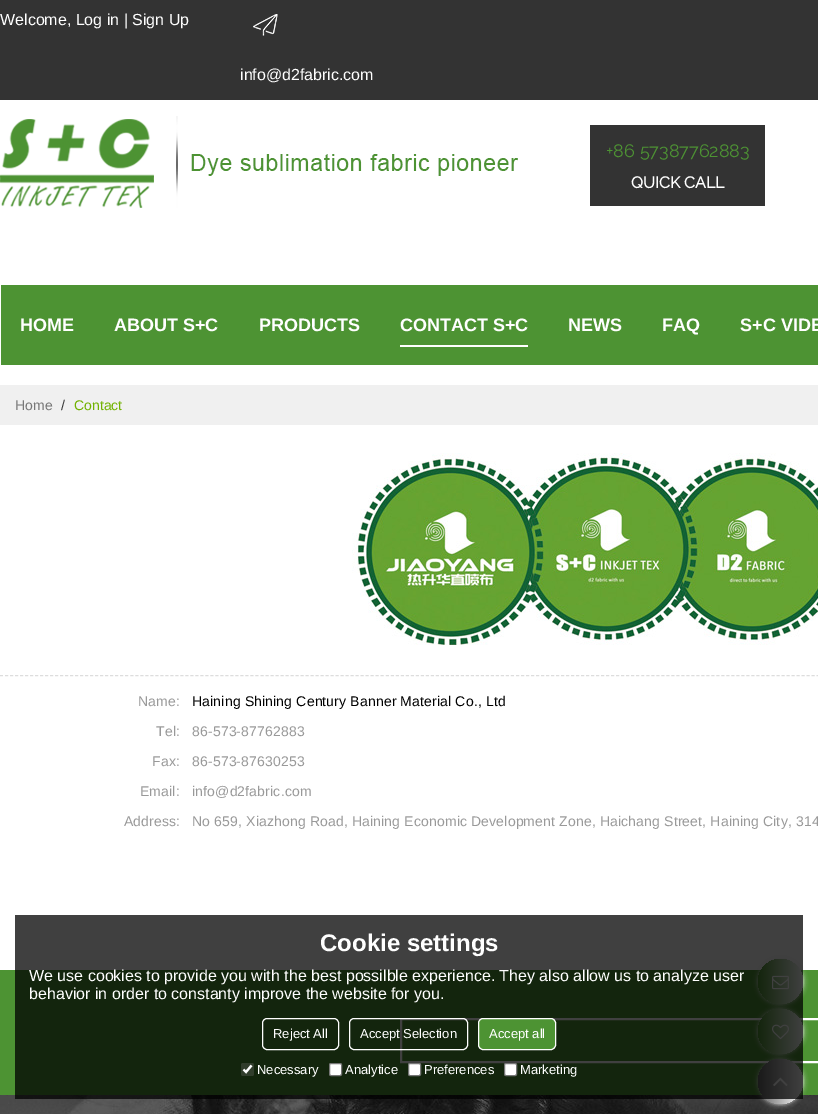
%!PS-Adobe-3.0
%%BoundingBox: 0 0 818 1114
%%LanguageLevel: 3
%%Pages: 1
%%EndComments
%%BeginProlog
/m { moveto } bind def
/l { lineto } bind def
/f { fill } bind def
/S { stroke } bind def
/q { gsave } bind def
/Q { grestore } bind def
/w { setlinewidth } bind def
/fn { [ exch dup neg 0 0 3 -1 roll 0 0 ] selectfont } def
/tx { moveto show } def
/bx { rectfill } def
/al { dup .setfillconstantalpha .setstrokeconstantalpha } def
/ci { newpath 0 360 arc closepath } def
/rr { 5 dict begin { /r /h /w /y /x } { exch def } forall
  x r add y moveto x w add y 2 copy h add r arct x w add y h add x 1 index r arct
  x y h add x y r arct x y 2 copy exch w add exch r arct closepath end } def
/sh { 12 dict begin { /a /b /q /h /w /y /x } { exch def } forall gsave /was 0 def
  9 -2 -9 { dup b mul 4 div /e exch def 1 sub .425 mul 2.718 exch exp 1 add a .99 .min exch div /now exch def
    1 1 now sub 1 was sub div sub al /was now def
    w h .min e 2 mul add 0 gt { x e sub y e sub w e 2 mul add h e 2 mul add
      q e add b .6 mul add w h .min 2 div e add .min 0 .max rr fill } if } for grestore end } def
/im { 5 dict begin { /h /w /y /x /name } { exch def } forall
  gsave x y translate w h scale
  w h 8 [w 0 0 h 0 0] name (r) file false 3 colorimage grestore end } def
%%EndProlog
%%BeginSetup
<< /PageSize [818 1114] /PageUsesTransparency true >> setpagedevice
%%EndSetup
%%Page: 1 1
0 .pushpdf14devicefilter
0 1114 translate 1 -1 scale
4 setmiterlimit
1 setgray
0 0 818 1114 bx
0.2 setgray
0 0 818 100 bx
/LiberationSans-Regular 16 fn
1 setgray
(Welcome, Log in | Sign Up) 0 25 tx
(image0.raw) 253 14 25 22 im
(info@d2fabric.com) 240 80 tx
(image1.raw) 0 116 518 92 im
0.2 setgray
590 125 175 81 bx
/Raleway-Thin 18 fn
0.302 0.576 0.2 setrgbcolor
(+86 57387762883) 606 157 tx
/Raleway-Bold 16 fn
1 setgray
(QUICK CALL) 631 188 tx
0.302 0.576 0.2 setrgbcolor
1 285 817 80 bx
/LiberationSans-Bold 18 fn
1 setgray
(HOME) 20 331 tx
(ABOUT S+C) 114 331 tx
(PRODUCTS) 259 331 tx
400 345 128 2 bx
(CONTACT S+C) 400 331 tx
(NEWS) 568 331 tx
(FAQ) 662 331 tx
(S+C VIDE) 740 331 tx
0.941 setgray
0 385 818 40 bx
/LiberationSans-Regular 14 fn
0.467 setgray
(Home) 15 410 tx
0.2 setgray
(/) 61 410 tx
0.443 0.698 0 setrgbcolor
(Contact) 74 410 tx
0.867 setgray
[3 2.01] 0 setdash
0 675.5 m 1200 675.5 l S
(image2.raw) 352 453 466 192 im
0.6 setgray
138 706 m 0.15 0 (Name:) ashow
0 setgray
192 706 m 0.15 0 (Haining Shining Century Banner Material Co., Ltd) ashow
0.6 setgray
156 736 m 0.15 0 (Tel:) ashow
192 736 m 0.15 0 (86-573-87762883) ashow
152 766 m 0.15 0 (Fax:) ashow
192 766 m 0.15 0 (86-573-87630253) ashow
140 796 m 0.15 0 (Email:) ashow
192 796 m 0.15 0 (info@d2fabric.com) ashow
124 826 m 0.15 0 (Address:) ashow
192 826 m 0.15 0 (No 659, Xiazhong Road, Haining Economic Development Zone, Haichang Street, Haining City, 314) ashow
0.302 0.576 0.2 setrgbcolor
0 970 818 125 bx
1 setgray
2 w
[] 0 setdash
401 1019 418 43 rectstroke
(image3.raw) 0 1095 818 19 im
0.933 setgray
758 959 45 45 22.5 2.5 1 sh
q 780.5 981.5 22.5 ci clip newpath
<< /ShadingType 2 /ColorSpace /DeviceRGB /Coords [758 982 803 982] /Extend [true true] /Function << /FunctionType 2 /Domain [0 1] /C0 [0.302 0.576 0.2] /C1 [1 1 1] /N 1 >> >> shfill Q
(image4.raw) 772 975 17 15 im
758 1009 45 45 22.5 2.5 1 sh
q 780.5 1031.5 22.5 ci clip newpath
<< /ShadingType 2 /ColorSpace /DeviceRGB /Coords [758 1032 803 1032] /Extend [true true] /Function << /FunctionType 2 /Domain [0 1] /C0 [0.302 0.576 0.2] /C1 [1 1 1] /N 1 >> >> shfill Q
(image5.raw) 772 1024 17 16 im
758 1059 45 45 22.5 2.5 1 sh
q 780.5 1081.5 22.5 ci clip newpath
<< /ShadingType 2 /ColorSpace /DeviceRGB /Coords [758 1082 803 1082] /Extend [true true] /Function << /FunctionType 2 /Domain [0 1] /C0 [0.4 0.4 0.4] /C1 [1 1 1] /N 1 >> >> shfill Q
(image6.raw) 773 1077 15 9 im
0.75 al
0 setgray
15 915 788 184 bx
/LiberationSans-Bold 24 fn
1 al
1 setgray
(Cookie settings) 320 951 tx
/LiberationSans-Regular 16 fn
(We use cookies to provide you with the best possilble experience. They also allow us to analyze user) 29 981 tx
(behavior in order to constanty improve the website for you.) 29 999 tx
1 w
262.5 1018.5 76 31 4.5 rr S
/LiberationSans-Regular 13 fn
(Reject All) 273 1038 tx
349.5 1018.5 118 31 4.5 rr S
(Accept Selection) 360 1038 tx
0.302 0.576 0.2 setrgbcolor
478.5 1018.5 77 31 4.5 rr q f Q
1 setgray
S
(Accept all) 489 1038 tx
0.192 0.239 0.173 setrgbcolor
241 1063 13 13 2 rr f
1 setgray
2.1 w
243.5 1069.5 m 246 1072 l 251.5 1065.5 l S
(Necessary) 257 1074 tx
329.5 1063.5 12 12 1.5 rr q f Q
0.463 setgray
1 w
S
1 setgray
(Analytice) 345 1074 tx
408.5 1063.5 12 12 1.5 rr q f Q
0.463 setgray
S
1 setgray
(Preferences) 424 1074 tx
504.5 1063.5 12 12 1.5 rr q f Q
0.463 setgray
S
1 setgray
(Marketing) 520 1074 tx
.poppdf14devicefilter showpage
%%EOF
